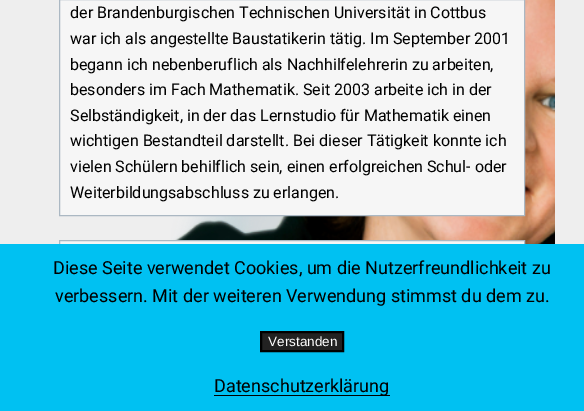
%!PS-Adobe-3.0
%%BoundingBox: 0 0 584 411
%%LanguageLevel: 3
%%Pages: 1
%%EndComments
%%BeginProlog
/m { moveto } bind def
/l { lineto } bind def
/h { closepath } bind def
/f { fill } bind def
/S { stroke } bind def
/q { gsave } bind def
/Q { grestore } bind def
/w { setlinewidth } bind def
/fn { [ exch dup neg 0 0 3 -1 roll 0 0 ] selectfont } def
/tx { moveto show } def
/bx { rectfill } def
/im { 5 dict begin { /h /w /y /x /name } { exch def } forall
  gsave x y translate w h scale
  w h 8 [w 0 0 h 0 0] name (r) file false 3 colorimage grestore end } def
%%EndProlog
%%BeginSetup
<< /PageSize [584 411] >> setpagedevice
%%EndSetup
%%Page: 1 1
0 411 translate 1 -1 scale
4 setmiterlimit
0.933 setgray
0 0 584 411 bx
(image0.raw) 171 0 384 244 im
0.965 setgray
59.5 -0.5 m 524.5 -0.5 l 524.5 215.5 l 59.5 215.5 l h q f Q
0.671 0.722 0.765 setrgbcolor
S
/Roboto-Regular 16 fn
0 setgray
(der Brandenburgischen Technischen Universität in Cottbus) 70 18 tx
(war ich als angestellte Baustatikerin tätig. Im September 2001) 70 44 tx
(begann ich nebenberuflich als Nachhilfelehrerin zu arbeiten,) 70 70 tx
(besonders im Fach Mathematik. Seit 2003 arbeite ich in der) 70 95 tx
(Selbständigkeit, in der das Lernstudio für Mathematik einen) 70 121 tx
(wichtigen Bestandteil darstellt. Bei dieser Tätigkeit konnte ich) 70 146 tx
(vielen Schülern behilflich sein, einen erfolgreichen Schul- oder) 70 172 tx
(Weiterbildungsabschluss zu erlangen.) 70 198 tx
0.965 setgray
60 241 464 3 bx
0.671 0.722 0.765 setrgbcolor
59.5 240.5 465 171 rectstroke
0 0.757 0.949 setrgbcolor
0 244 584 167 bx
/Roboto-Regular 18 fn
0 setgray
(Diese Seite verwendet Cookies, um die Nutzerfreundlichkeit zu) 53 274 tx
(verbessern. Mit der weiteren Verwendung stimmst du dem zu.) 55 302 tx
0.133 setgray
261 332 m 343 332 l 343 351 l 261 351 l h q f Q
0 setgray
2 w
S
/LiberationSans-Regular 13.5 fn
1 setgray
(Verstanden) 268 346 tx
0 setgray
214 395 176 1 bx
/Roboto-Regular 18 fn
(Datenschutzerklärung) 214 392 tx
showpage
%%EOF
